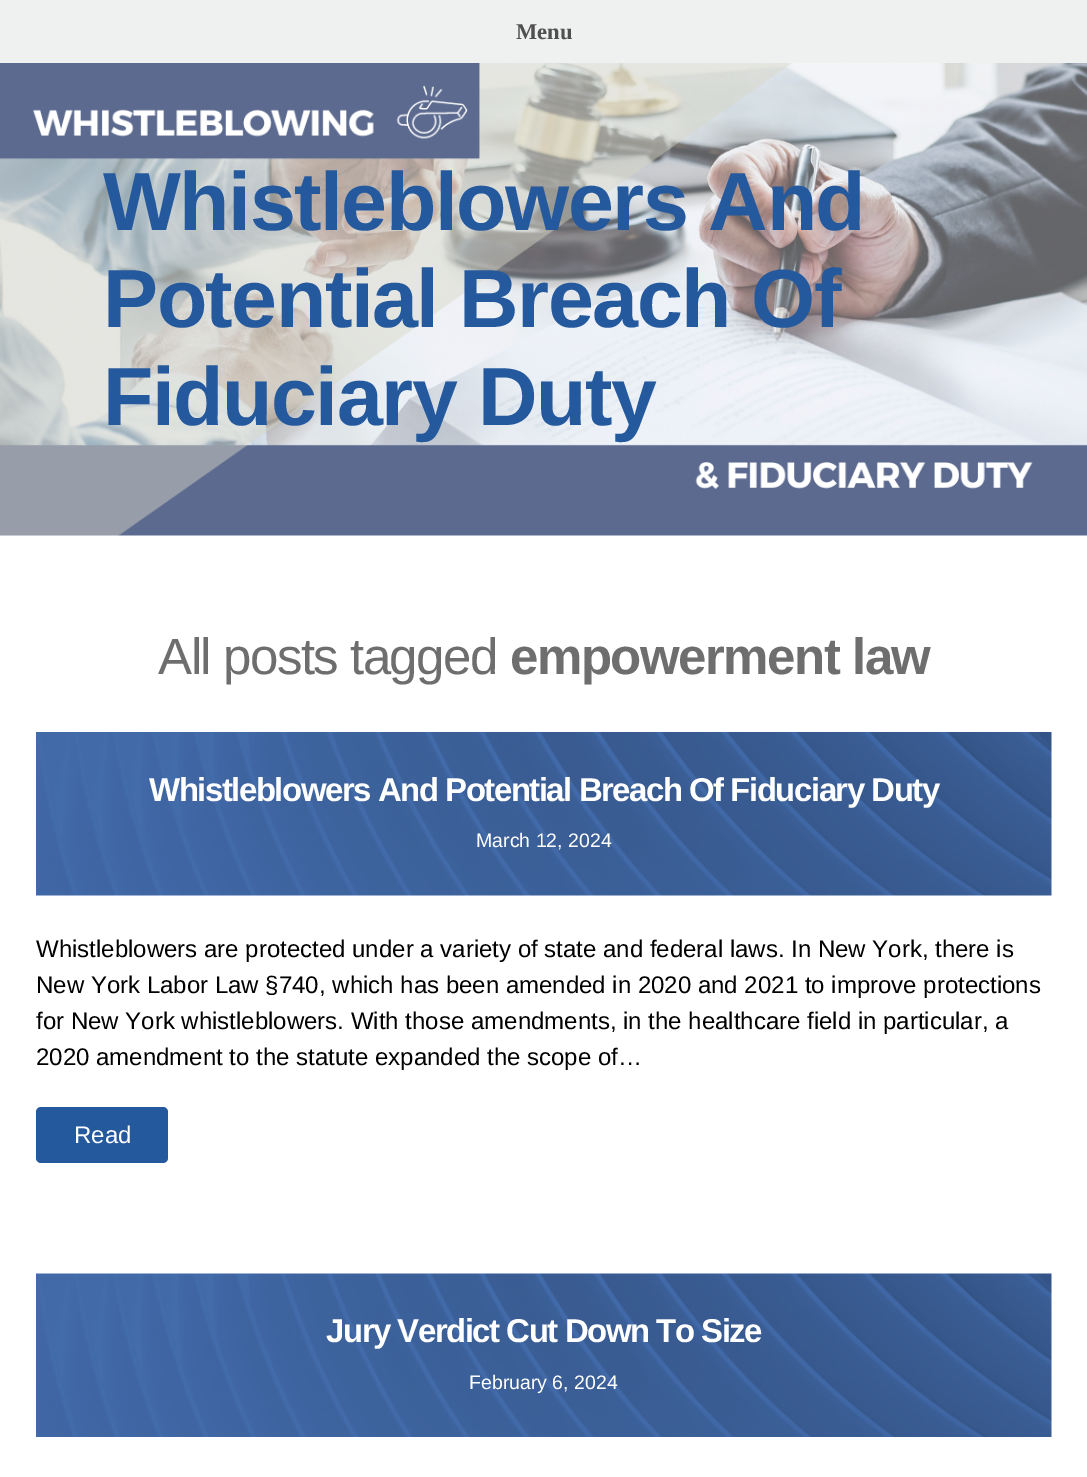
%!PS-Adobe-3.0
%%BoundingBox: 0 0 1087 1477
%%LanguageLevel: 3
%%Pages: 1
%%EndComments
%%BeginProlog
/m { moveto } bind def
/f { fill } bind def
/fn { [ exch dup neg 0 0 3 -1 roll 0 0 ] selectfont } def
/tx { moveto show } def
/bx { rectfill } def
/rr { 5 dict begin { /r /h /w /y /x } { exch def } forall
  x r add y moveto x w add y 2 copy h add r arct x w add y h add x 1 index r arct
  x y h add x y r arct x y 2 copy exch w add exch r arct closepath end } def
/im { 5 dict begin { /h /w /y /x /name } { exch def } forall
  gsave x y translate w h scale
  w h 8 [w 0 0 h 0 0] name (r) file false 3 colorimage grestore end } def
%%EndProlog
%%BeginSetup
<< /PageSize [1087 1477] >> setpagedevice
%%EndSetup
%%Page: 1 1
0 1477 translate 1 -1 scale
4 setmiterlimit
1 setgray
0 0 1087 1477 bx
0.937 0.941 0.941 setrgbcolor
0 0 1087 63 bx
/LiberationSerif-Bold 22.5 fn
0.31 0.314 0.31 setrgbcolor
(Menu) 516 39 tx
(image0.raw) 0 63 1087 473 im
/LiberationSans-Bold 82.5 fn
0.141 0.349 0.62 setrgbcolor
103 230 m -1.5 0 (Whistleblowers And) ashow
103 327 m -1.5 0 (Potential Breach Of) ashow
103 425 m -1.5 0 (Fiduciary Duty) ashow
/LiberationSans-Regular 51 fn
0.431 setgray
158 674 m -1.5 0 (All posts tagged) ashow
/LiberationSans-Bold 51 fn
510 674 m -1.5 0 (empowerment law) ashow
(image1.raw) 36 732 1016 164 im
/LiberationSans-Bold 33 fn
1 setgray
149 801 m -1.5 0 (Whistleblowers And Potential Breach Of Fiduciary Duty) ashow
/LiberationSans-Regular 19.5 fn
(March 12, 2024) 476 847 tx
/LiberationSans-Regular 24 fn
0 setgray
(Whistleblowers are protected under a variety of state and federal laws. In New York, there is) 36 957 tx
(New York Labor Law §740, which has been amended in 2020 and 2021 to improve protections) 36 993 tx
(for New York whistleblowers. With those amendments, in the healthcare field in particular, a) 36 1029 tx
(2020 amendment to the statute expanded the scope of…) 36 1065 tx
0.141 0.349 0.62 setrgbcolor
36 1107 132 56 5 rr f
1 setgray
(Read) 74 1143 tx
(image2.raw) 36 1273 1016 164 im
/LiberationSans-Bold 33 fn
326 1342 m -1.5 0 (Jury Verdict Cut Down To Size) ashow
/LiberationSans-Regular 19.5 fn
(February 6, 2024) 469 1389 tx
showpage
%%EOF
